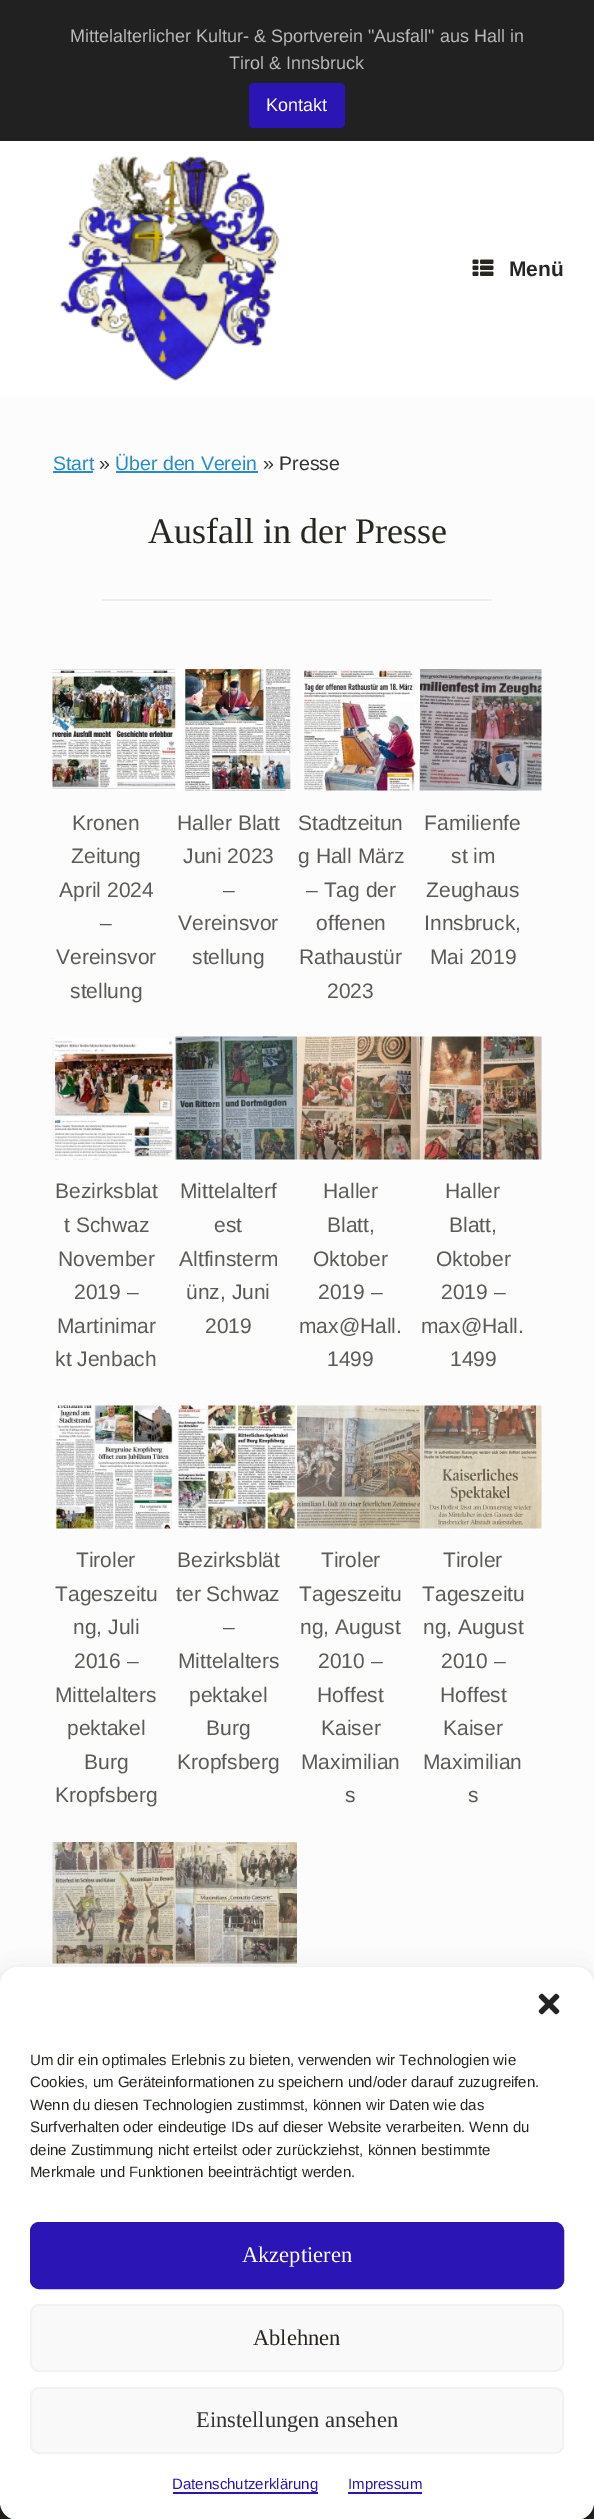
%!PS-Adobe-3.0
%%BoundingBox: 0 0 594 2519
%%LanguageLevel: 3
%%Pages: 1
%%EndComments
%%BeginProlog
/f { fill } bind def
/S { stroke } bind def
/q { gsave } bind def
/Q { grestore } bind def
/w { setlinewidth } bind def
/fn { [ exch dup neg 0 0 3 -1 roll 0 0 ] selectfont } def
/tx { moveto show } def
/bx { rectfill } def
/al { dup .setfillconstantalpha .setstrokeconstantalpha } def
/rr { 5 dict begin { /r /h /w /y /x } { exch def } forall
  x r add y moveto x w add y 2 copy h add r arct x w add y h add x 1 index r arct
  x y h add x y r arct x y 2 copy exch w add exch r arct closepath end } def
/sh { 12 dict begin { /a /b /q /h /w /y /x } { exch def } forall gsave /was 0 def
  9 -2 -9 { dup b mul 4 div /e exch def 1 sub .425 mul 2.718 exch exp 1 add a .99 .min exch div /now exch def
    1 1 now sub 1 was sub div sub al /was now def
    w h .min e 2 mul add 0 gt { x e sub y e sub w e 2 mul add h e 2 mul add
      q e add b .6 mul add w h .min 2 div e add .min 0 .max rr fill } if } for grestore end } def
/im { 5 dict begin { /h /w /y /x /name } { exch def } forall
  gsave x y translate w h scale
  w h 8 [w 0 0 h 0 0] name (r) file false 3 colorimage grestore end } def
%%EndProlog
%%BeginSetup
<< /PageSize [594 2519] /PageUsesTransparency true >> setpagedevice
%%EndSetup
%%Page: 1 1
0 .pushpdf14devicefilter
0 2519 translate 1 -1 scale
4 setmiterlimit
0.153 0.149 0.122 setrgbcolor
0 0 594 2519 bx
0.129 setgray
0 0 594 141 bx
/LiberationSans-Regular 18 fn
0.725 setgray
(Mittelalterlicher Kultur- & Sportverein "Ausfall" aus Hall in) 70 42 tx
(Tirol & Innsbruck) 229 69 tx
0.169 0.082 0.71 setrgbcolor
249 83 96 45 5 rr f
1 setgray
(Kontakt) 266 111 tx
0 141 594 255 bx
(image0.raw) 59 156 221 225 im
(image1.raw) 472 259 22 17 im
/LiberationSans-Bold 21 fn
0.149 setgray
(Menü) 509 276 tx
0.988 setgray
0 396 594 1589 bx
/LiberationSans-Regular 19.5 fn
0.141 0.549 0.784 setrgbcolor
(Start) 53 470 tx
53 471 40 2 bx
0.2 setgray
(») 99 470 tx
0.141 0.549 0.784 setrgbcolor
(Über den Verein) 115 470 tx
116 471 142 2 bx
0.2 setgray
(» Presse) 263 470 tx
/LiberationSerif-Regular 36 fn
0.153 0.149 0.122 setrgbcolor
(Ausfall in der Presse) 148 543 tx
0.933 setgray
102 599 390 2 bx
(image2.raw) 52 669 124 121 im
/LiberationSans-Regular 21 fn
0.357 0.353 0.341 setrgbcolor
(Kronen) 72 830 tx
(Zeitung) 71 863 tx
(April 2024) 59 897 tx
(–) 100 930 tx
(Vereinsvor) 56 964 tx
(stellung) 70 998 tx
(image3.raw) 175 669 117 122 im
(Haller Blatt) 177 830 tx
(Juni 2023) 183 863 tx
(–) 223 897 tx
(Vereinsvor) 178 930 tx
(stellung) 192 964 tx
(image4.raw) 303 669 117 122 im
(Stadtzeitun) 298 830 tx
(g Hall März) 298 863 tx
(– Tag der) 306 897 tx
(offenen) 316 930 tx
(Rathaustür) 299 964 tx
(2023) 327 998 tx
(image5.raw) 420 669 122 122 im
(Familienfe) 424 830 tx
(st im) 451 863 tx
(Zeughaus) 426 897 tx
(Innsbruck,) 424 930 tx
(Mai 2019) 430 964 tx
(image6.raw) 52 1038 124 122 im
(Bezirksblat) 55 1198 tx
(t Schwaz) 64 1232 tx
(November) 58 1266 tx
(2019 –) 74 1299 tx
(Martinimar) 57 1333 tx
(kt Jenbach) 55 1366 tx
(image7.raw) 175 1036 122 124 im
(Mittelalterf) 180 1198 tx
(est) 214 1232 tx
(Altfinsterm) 179 1266 tx
(ünz, Juni) 186 1299 tx
(2019) 205 1333 tx
(image8.raw) 297 1036 123 124 im
(Haller) 323 1198 tx
(Blatt,) 327 1232 tx
(Oktober) 313 1266 tx
(2019 –) 318 1299 tx
(max@Hall.) 299 1333 tx
(1499) 327 1366 tx
(image9.raw) 420 1036 122 124 im
(Haller) 445 1198 tx
(Blatt,) 449 1232 tx
(Oktober) 436 1266 tx
(2019 –) 441 1299 tx
(max@Hall.) 421 1333 tx
(1499) 450 1366 tx
(image10.raw) 52 1405 123 124 im
(Tiroler) 76 1567 tx
(Tageszeitu) 55 1601 tx
(ng, Juli) 73 1634 tx
(2016 –) 74 1668 tx
(Mittelalters) 55 1702 tx
(pektakel) 67 1735 tx
(Burg) 84 1769 tx
(Kropfsberg) 55 1802 tx
(image11.raw) 175 1405 122 124 im
(Bezirksblät) 177 1567 tx
(ter Schwaz) 176 1601 tx
(–) 223 1634 tx
(Mittelalters) 178 1668 tx
(pektakel) 189 1702 tx
(Burg) 206 1735 tx
(Kropfsberg) 177 1769 tx
(image12.raw) 297 1405 123 124 im
(Tiroler) 321 1567 tx
(Tageszeitu) 299 1601 tx
(ng, August) 300 1634 tx
(2010 –) 318 1668 tx
(Hoffest) 317 1702 tx
(Kaiser) 321 1735 tx
(Maximilian) 301 1769 tx
(s) 345 1802 tx
(image13.raw) 420 1405 122 124 im
(Tiroler) 443 1567 tx
(Tageszeitu) 422 1601 tx
(ng, August) 423 1634 tx
(2010 –) 441 1668 tx
(Hoffest) 440 1702 tx
(Kaiser) 443 1735 tx
(Maximilian) 423 1769 tx
(s) 468 1802 tx
(image14.raw) 52 1842 124 122 im
(image15.raw) 175 1842 122 122 im
0 setgray
0 1976 594 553 18 4.5 0.23 sh
0 1982 594 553 18 15 0.19 sh
1 setgray
0 1967 594 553 18 rr f
(image16.raw) 538 1993 22 22 im
/LiberationSans-Regular 15 fn
0.153 0.149 0.122 setrgbcolor
(Um dir ein optimales Erlebnis zu bieten, verwenden wir Technologien wie) 30 2065 tx
(Cookies, um Geräteinformationen zu speichern und/oder darauf zuzugreifen.) 30 2087 tx
(Wenn du diesen Technologien zustimmst, können wir Daten wie das) 30 2110 tx
(Surfverhalten oder eindeutige IDs auf dieser Website verarbeiten. Wenn du) 30 2132 tx
(deine Zustimmung nicht erteilst oder zurückziehst, können bestimmte) 30 2155 tx
(Merkmale und Funktionen beeinträchtigt werden.) 30 2177 tx
0.169 0.082 0.71 setrgbcolor
31 2223 532 65 8 rr q f Q
2 w
S
/LiberationSerif-Regular 22.5 fn
1 setgray
(Akzeptieren) 242 2262 tx
0.976 setgray
31 2305 532 66 8 rr q f Q
0.949 setgray
S
0.153 0.149 0.122 setrgbcolor
(Ablehnen) 253 2345 tx
0.976 setgray
31 2388 532 65 8 rr q f Q
0.949 setgray
S
0.2 setgray
(Einstellungen ansehen) 196 2427 tx
0.169 0.082 0.71 setrgbcolor
173 2492 145 2 bx
/LiberationSans-Regular 15 fn
(Datenschutzerklärung) 172 2489 tx
348 2492 74 2 bx
(Impressum) 348 2489 tx
.poppdf14devicefilter showpage
%%EOF
